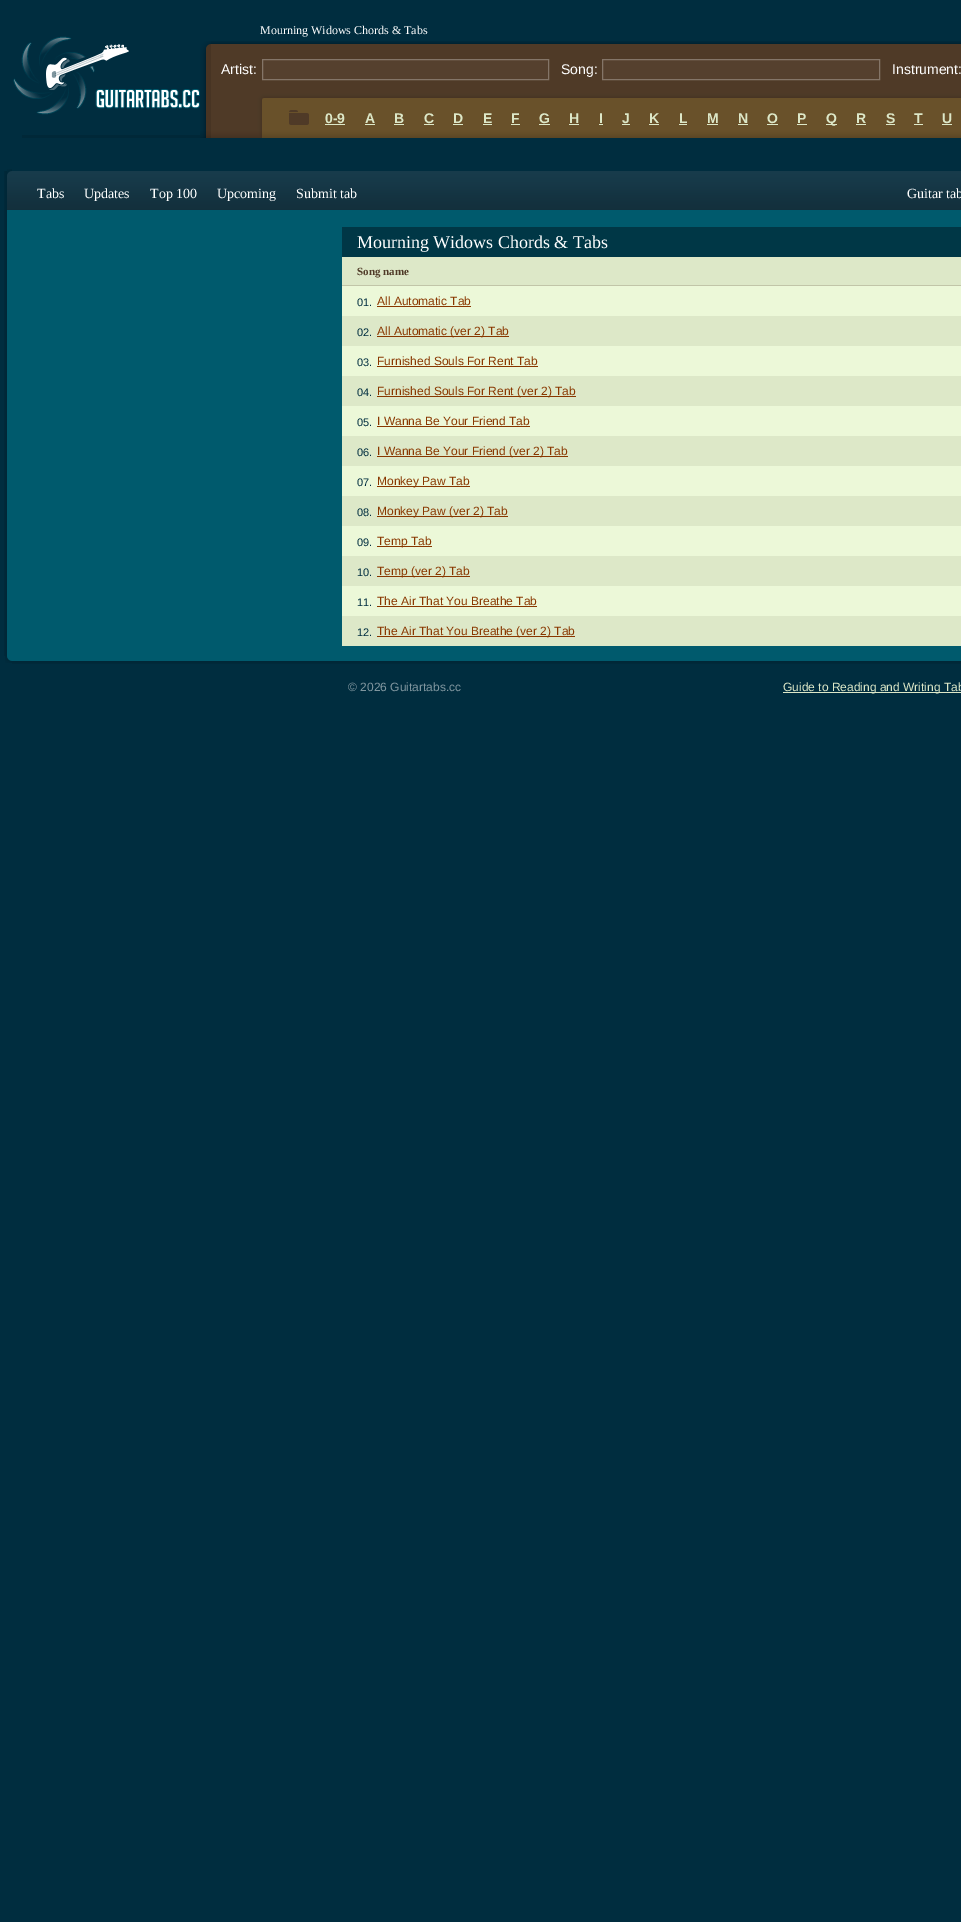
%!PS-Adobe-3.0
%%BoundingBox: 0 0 961 1922
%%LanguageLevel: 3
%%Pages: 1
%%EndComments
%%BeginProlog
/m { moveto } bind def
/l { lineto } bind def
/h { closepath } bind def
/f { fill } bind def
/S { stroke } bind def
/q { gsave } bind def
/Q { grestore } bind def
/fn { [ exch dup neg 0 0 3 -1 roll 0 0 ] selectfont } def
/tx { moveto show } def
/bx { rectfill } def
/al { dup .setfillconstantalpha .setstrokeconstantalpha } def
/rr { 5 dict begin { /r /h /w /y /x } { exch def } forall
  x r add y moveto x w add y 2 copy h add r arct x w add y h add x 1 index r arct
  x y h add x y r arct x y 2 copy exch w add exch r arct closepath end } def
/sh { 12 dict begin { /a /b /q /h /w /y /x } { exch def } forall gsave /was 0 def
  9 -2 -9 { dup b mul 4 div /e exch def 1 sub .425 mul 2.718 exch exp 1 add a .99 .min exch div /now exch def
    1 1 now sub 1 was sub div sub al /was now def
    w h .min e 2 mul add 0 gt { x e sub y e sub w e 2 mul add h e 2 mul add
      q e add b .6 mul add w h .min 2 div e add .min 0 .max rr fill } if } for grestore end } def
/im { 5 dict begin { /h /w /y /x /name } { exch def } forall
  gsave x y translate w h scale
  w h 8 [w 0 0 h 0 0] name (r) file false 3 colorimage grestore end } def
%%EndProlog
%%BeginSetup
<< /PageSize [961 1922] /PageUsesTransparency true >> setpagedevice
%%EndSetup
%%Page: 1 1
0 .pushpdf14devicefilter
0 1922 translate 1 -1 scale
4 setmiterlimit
0 0.176 0.247 setrgbcolor
0 0 961 1922 bx
0 0.157 0.22 setrgbcolor
22 135 178 3 bx
(image0.raw) 13 36 187 79 im
/LiberationSerif-Regular 12 fn
1 setgray
(Mourning Widows Chords & Tabs) 260 34 tx
(image1.raw) 211 41 750 97 im
(image2.raw) 200 41 11 97 im
/LiberationSans-Regular 14 fn
(Artist:) 221 74 tx
0.333 0.251 0.18 setrgbcolor
262.5 59.5 m 548.5 59.5 l 548.5 79.5 l 262.5 79.5 l h q f Q
0.518 0.459 0.408 setrgbcolor
S
1 setgray
(Song:) 561 74 tx
0.333 0.251 0.18 setrgbcolor
602.5 59.5 m 879.5 59.5 l 879.5 79.5 l 602.5 79.5 l h q f Q
0.518 0.459 0.408 setrgbcolor
S
1 setgray
(Instrument:) 892 74 tx
q
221 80 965 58 rectclip
0.247 0.18 0.122 setrgbcolor
262 98 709 40 2 2.5 1 sh
Q
(image3.raw) 262 98 699 40 im
(image4.raw) 289 110 20 15 im
/LiberationSans-Bold 14 fn
0.867 0.91 0.784 setrgbcolor
(0-9) 325 123 tx
325 124 20 1 bx
(A) 365 123 tx
365 124 10 1 bx
(B) 394 123 tx
394 124 10 1 bx
(C) 424 123 tx
424 124 10 1 bx
(D) 453 123 tx
453 124 10 1 bx
(E) 483 123 tx
483 124 9 1 bx
(F) 511 123 tx
511 124 9 1 bx
(G) 539 123 tx
539 124 11 1 bx
(H) 569 123 tx
569 124 10 1 bx
(I) 599 123 tx
599 124 4 1 bx
(J) 622 123 tx
622 124 8 1 bx
(K) 649 123 tx
649 124 10 1 bx
(L) 679 123 tx
679 124 8 1 bx
(M) 707 123 tx
707 124 11 1 bx
(N) 738 123 tx
738 124 10 1 bx
(O) 767 123 tx
767 124 11 1 bx
(P) 797 123 tx
797 124 10 1 bx
826 124 11 1 bx
(Q) 826 123 tx
(R) 856 123 tx
856 124 10 1 bx
(S) 886 123 tx
886 124 9 1 bx
(T) 914 123 tx
914 124 9 1 bx
(U) 942 123 tx
942 124 10 1 bx
(image5.raw) 4 171 8 46 im
(image6.raw) 7 169 5 41 im
0 0.353 0.427 setrgbcolor
12 210 949 446 bx
(image7.raw) 12 171 949 39 im
/LiberationSerif-Regular 14 fn
1 setgray
(Tabs) 37 198 tx
(Updates) 84 198 tx
(Top 100) 150 198 tx
(Upcoming) 217 198 tx
(Submit tab) 296 198 tx
(Guitar tab) 907 198 tx
(image8.raw) 4 217 8 439 im
0 0.216 0.275 setrgbcolor
342 227 619 30 bx
/LiberationSerif-Regular 18 fn
1 setgray
(Mourning Widows Chords & Tabs) 357 248 tx
0.867 0.91 0.784 setrgbcolor
342 257 619 389 bx
0.757 0.773 0.659 setrgbcolor
342 285 619 1 bx
/LiberationSerif-Bold 11 fn
0.31 0.227 0.153 setrgbcolor
(Song name) 357 275 tx
0.925 0.973 0.847 setrgbcolor
342 286 619 30 bx
/LiberationSans-Regular 11 fn
0 0.176 0.247 setrgbcolor
(01.) 357 306 tx
/LiberationSans-Regular 12 fn
0.537 0.216 0 setrgbcolor
(All Automatic Tab) 377 305 tx
377 306 94 1 bx
/LiberationSans-Regular 11 fn
0 0.176 0.247 setrgbcolor
(02.) 357 336 tx
0.537 0.216 0 setrgbcolor
377 336 132 1 bx
/LiberationSans-Regular 12 fn
(All Automatic \(ver 2\) Tab) 377 335 tx
0.925 0.973 0.847 setrgbcolor
342 346 619 30 bx
/LiberationSans-Regular 11 fn
0 0.176 0.247 setrgbcolor
(03.) 357 366 tx
/LiberationSans-Regular 12 fn
0.537 0.216 0 setrgbcolor
(Furnished Souls For Rent Tab) 377 365 tx
377 366 161 1 bx
/LiberationSans-Regular 11 fn
0 0.176 0.247 setrgbcolor
(04.) 357 396 tx
0.537 0.216 0 setrgbcolor
377 396 199 1 bx
/LiberationSans-Regular 12 fn
(Furnished Souls For Rent \(ver 2\) Tab) 377 395 tx
0.925 0.973 0.847 setrgbcolor
342 406 619 30 bx
/LiberationSans-Regular 11 fn
0 0.176 0.247 setrgbcolor
(05.) 357 426 tx
/LiberationSans-Regular 12 fn
0.537 0.216 0 setrgbcolor
(I Wanna Be Your Friend Tab) 377 425 tx
377 426 153 1 bx
/LiberationSans-Regular 11 fn
0 0.176 0.247 setrgbcolor
(06.) 357 456 tx
0.537 0.216 0 setrgbcolor
377 456 191 1 bx
/LiberationSans-Regular 12 fn
(I Wanna Be Your Friend \(ver 2\) Tab) 377 455 tx
0.925 0.973 0.847 setrgbcolor
342 466 619 30 bx
/LiberationSans-Regular 11 fn
0 0.176 0.247 setrgbcolor
(07.) 357 486 tx
0.537 0.216 0 setrgbcolor
377 486 93 1 bx
/LiberationSans-Regular 12 fn
(Monkey Paw Tab) 377 485 tx
/LiberationSans-Regular 11 fn
0 0.176 0.247 setrgbcolor
(08.) 357 516 tx
0.537 0.216 0 setrgbcolor
377 516 131 1 bx
/LiberationSans-Regular 12 fn
(Monkey Paw \(ver 2\) Tab) 377 515 tx
0.925 0.973 0.847 setrgbcolor
342 526 619 30 bx
/LiberationSans-Regular 11 fn
0 0.176 0.247 setrgbcolor
(09.) 357 546 tx
0.537 0.216 0 setrgbcolor
377 546 55 1 bx
/LiberationSans-Regular 12 fn
(Temp Tab) 377 545 tx
/LiberationSans-Regular 11 fn
0 0.176 0.247 setrgbcolor
(10.) 357 576 tx
0.537 0.216 0 setrgbcolor
377 576 93 1 bx
/LiberationSans-Regular 12 fn
(Temp \(ver 2\) Tab) 377 575 tx
0.925 0.973 0.847 setrgbcolor
342 586 619 30 bx
/LiberationSans-Regular 11 fn
0 0.176 0.247 setrgbcolor
(11.) 357 606 tx
/LiberationSans-Regular 12 fn
0.537 0.216 0 setrgbcolor
(The Air That You Breathe Tab) 377 605 tx
377 606 160 1 bx
/LiberationSans-Regular 11 fn
0 0.176 0.247 setrgbcolor
(12.) 357 636 tx
0.537 0.216 0 setrgbcolor
377 636 198 1 bx
/LiberationSans-Regular 12 fn
(The Air That You Breathe \(ver 2\) Tab) 377 635 tx
(image9.raw) 5 656 7 7 im
(image10.raw) 12 656 949 8 im
0.502 0.588 0.624 setrgbcolor
(© 2026 Guitartabs.cc) 348 691 tx
0.867 0.91 0.784 setrgbcolor
783 692 178 1 bx
(Guide to Reading and Writing Tab) 783 691 tx
.poppdf14devicefilter showpage
%%EOF
